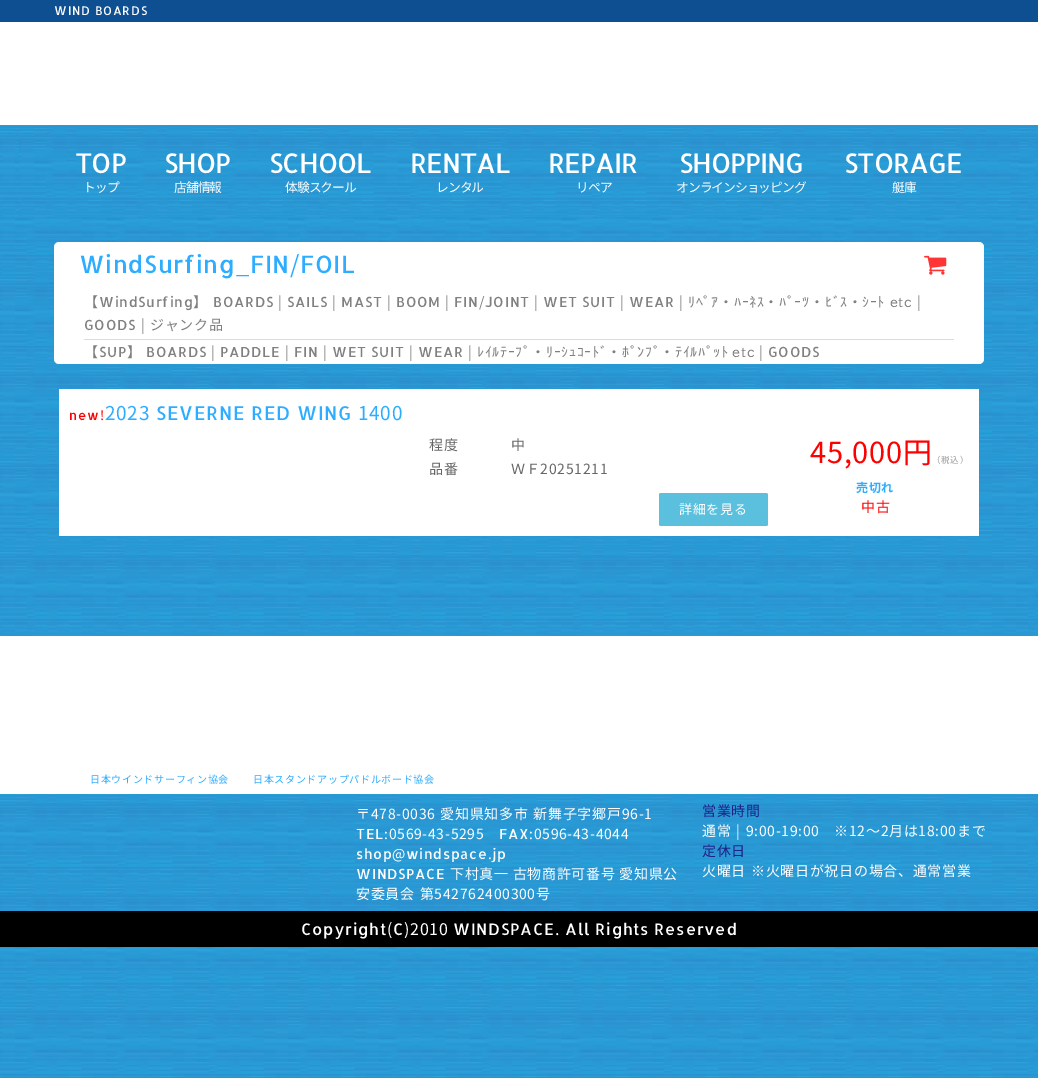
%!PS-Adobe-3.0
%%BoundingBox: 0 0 1038 1078
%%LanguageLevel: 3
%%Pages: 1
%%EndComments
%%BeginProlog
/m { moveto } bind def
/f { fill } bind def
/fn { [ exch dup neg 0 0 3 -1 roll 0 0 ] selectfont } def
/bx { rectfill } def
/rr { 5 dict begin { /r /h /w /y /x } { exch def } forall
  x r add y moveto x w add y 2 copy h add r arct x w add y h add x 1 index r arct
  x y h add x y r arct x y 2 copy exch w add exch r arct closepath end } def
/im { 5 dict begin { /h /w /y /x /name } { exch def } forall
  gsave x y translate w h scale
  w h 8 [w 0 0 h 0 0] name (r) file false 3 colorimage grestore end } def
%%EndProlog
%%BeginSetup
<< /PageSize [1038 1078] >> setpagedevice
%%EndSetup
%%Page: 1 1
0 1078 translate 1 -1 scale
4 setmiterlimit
1 setgray
0 0 1038 1078 bx
(image0.raw) 0 217 1038 861 im
0.055 0.31 0.569 setrgbcolor
0 0 1038 22 bx
/Allerta-Regular 12 fn
1 setgray
54 15 m 0.7 0 (WIND BOARDS) ashow
(image1.raw) 0 125 1038 92 im
(image2.raw) 19 125 1000 92 im
/Allerta-Regular 27 fn
75 173 m -1 0 (TOP) ashow
/NotoSansJP-Regular 12.75 fn
83 192 m -1 0 (トップ) ashow
/Allerta-Regular 27 fn
164 173 m -1 0 (SHOP) ashow
/NotoSansJP-Regular 12.75 fn
174 192 m -1 0 (店舗情報) ashow
/Allerta-Regular 27 fn
269 173 m -1 0 (SCHOOL) ashow
/NotoSansJP-Regular 12.75 fn
285 192 m -1 0 (体験スクール) ashow
/Allerta-Regular 27 fn
410 173 m -1 0 (RENTAL) ashow
/NotoSansJP-Regular 12.75 fn
436 192 m -1 0 (レンタル) ashow
/Allerta-Regular 27 fn
548 173 m -1 0 (REPAIR) ashow
/NotoSansJP-Regular 12.75 fn
576 192 m -1 0 (リペア) ashow
/Allerta-Regular 27 fn
679 173 m -1 0 (SHOPPING) ashow
/NotoSansJP-Regular 12.75 fn
676 192 m -1 0 (オンラインショッピング) ashow
/Allerta-Regular 27 fn
844 173 m -1 0 (STORAGE) ashow
/NotoSansJP-Regular 12.75 fn
892 192 m -1 0 (艇庫) ashow
54 242 930 122 5 rr f
/Allerta-Regular 24 fn
0.176 0.678 1 setrgbcolor
79 273 m 0.7 0 (WindSurfing) ashow
250 273 m 0.7 0 (FIN) ashow
/NotoSansJP-Regular 24 fn
290 273 m 0.7 0 (/) ashow
/Allerta-Regular 24 fn
300 273 m 0.7 0 (FOIL) ashow
/NotoSansJP-Regular 24 fn
236 273 m 0.7 0 (_) ashow
(image3.raw) 924 255 23 20 im
/NotoSansJP-Regular 14 fn
0.502 setgray
84 307 m 0.7 0 (【) ashow
/Allerta-Regular 14 fn
99 307 m 0.7 0 (WindSurfing) ashow
/NotoSansJP-Regular 14 fn
193 307 m 0.7 0 (】) ashow
/Allerta-Regular 14 fn
213 307 m 0.7 0 (BOARDS) ashow
/NotoSansJP-Regular 14 fn
0.478 setgray
278 307 m 0.7 0 (|) ashow
/Allerta-Regular 14 fn
0.502 setgray
287 307 m 0.7 0 (SAILS) ashow
/NotoSansJP-Regular 14 fn
0.478 setgray
332 307 m 0.7 0 (|) ashow
/Allerta-Regular 14 fn
0.502 setgray
341 307 m 0.7 0 (MAST) ashow
/NotoSansJP-Regular 14 fn
0.478 setgray
387 307 m 0.7 0 (|) ashow
/Allerta-Regular 14 fn
0.502 setgray
396 307 m 0.7 0 (BOOM) ashow
/NotoSansJP-Regular 14 fn
0.478 setgray
445 307 m 0.7 0 (|) ashow
/Allerta-Regular 14 fn
0.502 setgray
454 307 m 0.7 0 (FIN) ashow
/NotoSansJP-Regular 14 fn
479 307 m 0.7 0 (/) ashow
/Allerta-Regular 14 fn
485 307 m 0.7 0 (JOINT) ashow
/NotoSansJP-Regular 14 fn
0.478 setgray
534 307 m 0.7 0 (|) ashow
/Allerta-Regular 14 fn
0.502 setgray
543 307 m 0.7 0 (WET SUIT) ashow
/NotoSansJP-Regular 14 fn
0.478 setgray
620 307 m 0.7 0 (|) ashow
/Allerta-Regular 14 fn
0.502 setgray
629 307 m 0.7 0 (WEAR) ashow
/NotoSansJP-Regular 14 fn
0.478 setgray
679 307 m 0.7 0 (|) ashow
/IPAPGothic-Regular 14 fn
0.502 setgray
688 307 m 0.7 0 (ﾘﾍﾟｱ) ashow
/NotoSansJP-Regular 14 fn
719 307 m 0.7 0 (・) ashow
/IPAPGothic-Regular 14 fn
734 307 m 0.7 0 (ﾊｰﾈｽ) ashow
/NotoSansJP-Regular 14 fn
764 307 m 0.7 0 (・) ashow
/IPAPGothic-Regular 14 fn
779 307 m 0.7 0 (ﾊﾟｰﾂ) ashow
/NotoSansJP-Regular 14 fn
810 307 m 0.7 0 (・) ashow
/IPAPGothic-Regular 14 fn
825 307 m 0.7 0 (ﾋﾞｽ) ashow
/NotoSansJP-Regular 14 fn
848 307 m 0.7 0 (・) ashow
/IPAPGothic-Regular 14 fn
862 307 m 0.7 0 (ｼｰﾄ etc) ashow
/NotoSansJP-Regular 14 fn
0.478 setgray
917 307 m 0.7 0 (|) ashow
/Allerta-Regular 14 fn
0.502 setgray
84 330 m 0.7 0 (GOODS) ashow
/NotoSansJP-Regular 14 fn
0.478 setgray
141 330 m 0.7 0 (|) ashow
0.502 setgray
150 330 m 0.7 0 (ジャンク品) ashow
0.859 setgray
84 339 870 1 bx
0.502 setgray
84 357 m 0.7 0 (【) ashow
/Allerta-Regular 14 fn
99 357 m 0.7 0 (SUP) ashow
/NotoSansJP-Regular 14 fn
127 357 m 0.7 0 (】) ashow
/Allerta-Regular 14 fn
146 357 m 0.7 0 (BOARDS) ashow
/NotoSansJP-Regular 14 fn
0.478 setgray
211 357 m 0.7 0 (|) ashow
/Allerta-Regular 14 fn
0.502 setgray
220 357 m 0.7 0 (PADDLE) ashow
/NotoSansJP-Regular 14 fn
0.478 setgray
285 357 m 0.7 0 (|) ashow
/Allerta-Regular 14 fn
0.502 setgray
294 357 m 0.7 0 (FIN) ashow
/NotoSansJP-Regular 14 fn
0.478 setgray
323 357 m 0.7 0 (|) ashow
/Allerta-Regular 14 fn
0.502 setgray
332 357 m 0.7 0 (WET SUIT) ashow
/NotoSansJP-Regular 14 fn
0.478 setgray
409 357 m 0.7 0 (|) ashow
/Allerta-Regular 14 fn
0.502 setgray
418 357 m 0.7 0 (WEAR) ashow
/NotoSansJP-Regular 14 fn
0.478 setgray
468 357 m 0.7 0 (|) ashow
/IPAPGothic-Regular 14 fn
0.502 setgray
477 357 m 0.7 0 (ﾚｲﾙﾃｰﾌﾟ) ashow
/NotoSansJP-Regular 14 fn
531 357 m 0.7 0 (・) ashow
/IPAPGothic-Regular 14 fn
546 357 m 0.7 0 (ﾘｰｼｭｺｰﾄﾞ) ashow
/NotoSansJP-Regular 14 fn
607 357 m 0.7 0 (・) ashow
/IPAPGothic-Regular 14 fn
622 357 m 0.7 0 (ﾎﾟﾝﾌﾟ) ashow
/NotoSansJP-Regular 14 fn
660 357 m 0.7 0 (・) ashow
/IPAPGothic-Regular 14 fn
675 357 m -1 0 32 0.7 0 (ﾃｲﾙﾊﾟｯﾄ etc) awidthshow
/NotoSansJP-Regular 14 fn
0.478 setgray
759 357 m 0.7 0 (|) ashow
/Allerta-Regular 14 fn
0.502 setgray
768 357 m 0.7 0 (GOODS) ashow
1 setgray
59 389 920 147 bx
/Allerta-Regular 13 fn
1 0 0 setrgbcolor
69 420 m 0.7 0 (new) ashow
/NotoSansJP-Regular 13 fn
100 420 m 0.7 0 (!) ashow
/NotoSansJP-Regular 19 fn
0.176 0.678 1 setrgbcolor
105 420 m 0.7 0 (2023) ashow
/Allerta-Regular 19 fn
156 420 m 0.7 0 (SEVERNE RED WING) ashow
/NotoSansJP-Regular 19 fn
358 420 m 0.7 0 (1400) ashow
/NotoSansJP-Regular 14 fn
0.4 setgray
429 450 m 0.7 0 (程度) ashow
511 450 m 0.7 0 (中) ashow
429 474 m 0.7 0 (品番) ashow
511 474 m 0.7 0 (ＷＦ20251211) ashow
0.357 0.753 0.871 setrgbcolor
659 493 109 33 2 rr f
/NotoSansJP-Regular 13 fn
1 setgray
679 514 m 0.7 0 (詳細を見る) ashow
/NotoSansJP-Regular 29 fn
1 0 0 setrgbcolor
810 463 m 0.7 0 (45,000円) ashow
/NotoSansJP-Regular 8.5 fn
0.6 setgray
932 463 m 0.7 0 (（税込）) ashow
/NotoSansJP-Bold 12 fn
0.176 0.678 1 setrgbcolor
856 492 m 0.7 0 (売切れ) ashow
/NotoSansJP-Regular 14 fn
1 0 0 setrgbcolor
861 512 m 0.7 0 (中古) ashow
1 setgray
0 636 1038 158 bx
/NotoSansJP-Regular 10 fn
0.176 0.678 1 setrgbcolor
90 783 m 0.7 0 (日本ウインドサーフィン協会) ashow
253 783 m 0.7 0 (日本スタンドアップパドルボード協会) ashow
(image4.raw) 0 794 1038 117 im
/NotoSansJP-Regular 14 fn
1 setgray
356 819 m 1 0 32 0.7 0 (〒478-0036 愛知県知多市 新舞子字郷戸96-1) awidthshow
/Allerta-Regular 14 fn
356 839 m 0.7 0 (TEL) ashow
/NotoSansJP-Regular 14 fn
384 839 m 0.7 0 (:0569-43-5295) ashow
/Allerta-Regular 14 fn
499 839 m 0.7 0 (FAX) ashow
/NotoSansJP-Regular 14 fn
529 839 m 0.7 0 (:0596-43-4044) ashow
/Allerta-Regular 14 fn
356 859 m 0.7 0 (shop) ashow
/NotoSansJP-Regular 14 fn
392 859 m 0.7 0 (@) ashow
/Allerta-Regular 14 fn
406 859 m 0.7 0 (windspace jp) ashow
/NotoSansJP-Regular 14 fn
488 859 m 0.7 0 (.) ashow
/Allerta-Regular 14 fn
356 879 m 0.7 0 (WINDSPACE) ashow
/NotoSansJP-Regular 14 fn
450 879 m 0.7 0 (下村真一 古物商許可番号 愛知県公) ashow
356 899 m 1 0 32 0.7 0 (安委員会 第542762400300号) awidthshow
0.114 0.129 0.533 setrgbcolor
702 816 m 0.7 0 (営業時間) ashow
1 setgray
702 836 m 1 0 32 0.7 0 (通常 | 9:00-19:00　※12～2月は18:00まで) awidthshow
0.114 0.129 0.533 setrgbcolor
702 856 m 0.7 0 (定休日) ashow
1 setgray
702 876 m 1 0 32 0.7 0 (火曜日 ※火曜日が祝日の場合、通常営業) awidthshow
0 setgray
0 911 1038 36 bx
/Allerta-Regular 16 fn
1 setgray
301 935 m 0.7 0 (Copyright) ashow
/NotoSansJP-Regular 16 fn
387 935 m 0.7 0 (\() ashow
/Allerta-Regular 16 fn
393 935 m 0.7 0 (C) ashow
/NotoSansJP-Regular 16 fn
404 935 m 0.7 0 (\)2010) ashow
/Allerta-Regular 16 fn
453 935 m 0.7 0 (WINDSPACE) ashow
/NotoSansJP-Regular 16 fn
555 935 m 0.7 0 (.) ashow
/Allerta-Regular 16 fn
565 935 m 0.7 0 (All Rights Reserved) ashow
showpage
%%EOF
